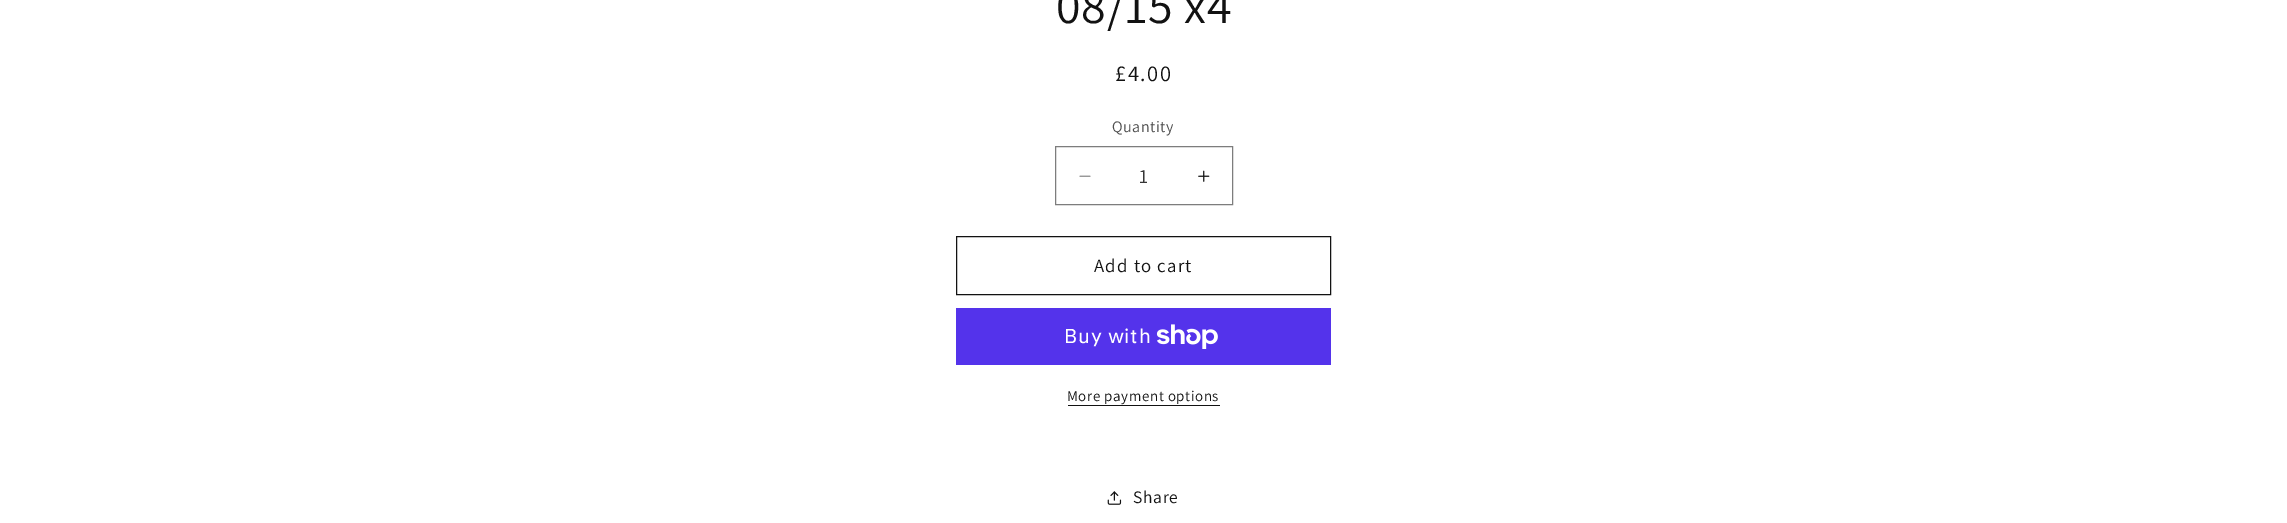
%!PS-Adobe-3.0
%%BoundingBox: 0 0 2287 523
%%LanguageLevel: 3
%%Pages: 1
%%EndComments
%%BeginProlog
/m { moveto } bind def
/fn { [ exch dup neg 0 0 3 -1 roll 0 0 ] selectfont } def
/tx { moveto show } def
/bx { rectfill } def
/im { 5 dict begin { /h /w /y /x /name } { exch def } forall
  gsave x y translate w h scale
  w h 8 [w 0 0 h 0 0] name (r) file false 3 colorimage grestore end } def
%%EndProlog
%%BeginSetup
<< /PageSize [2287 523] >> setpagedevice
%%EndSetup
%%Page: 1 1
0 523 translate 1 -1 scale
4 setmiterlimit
1 setgray
0 0 2287 523 bx
/Assistant-Regular 50 fn
0.071 setgray
1056 23 m 0.75 0 (08/15 x4) ashow
/Assistant-Regular 22.5 fn
1115 81 m 1.5 0 (£4.00) ashow
/Assistant-Regular 16 fn
0.302 setgray
1112 132 m 0.5 0 (Quantity) ashow
(image0.raw) 1079 175 12 2 im
(image1.raw) 1198 170 12 12 im
0.49 setgray
1055.5 146.5 177 58 rectstroke
/Assistant-Regular 20 fn
0.212 setgray
(1) 1139 183 tx
0.071 setgray
956.5 236.5 374 58 rectstroke
/Assistant-Regular 18.75 fn
1094 272 m 1.25 0 (Add to cart) ashow
0.329 0.2 0.922 setrgbcolor
956 308 375 57 bx
/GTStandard-Regular 20 fn
1 setgray
1064 343 m 0.75 0 (Buy with) ashow
(image2.raw) 1156 324 62 25 im
/Assistant-Regular 15 fn
0.071 setgray
1067 401 m 0.6 0 (More payment options) ashow
1068 405 152 1 bx
(image3.raw) 1107 491 15 14 im
/Assistant-Regular 17.5 fn
1133 503 m 0.75 0 (Share) ashow
showpage
%%EOF
